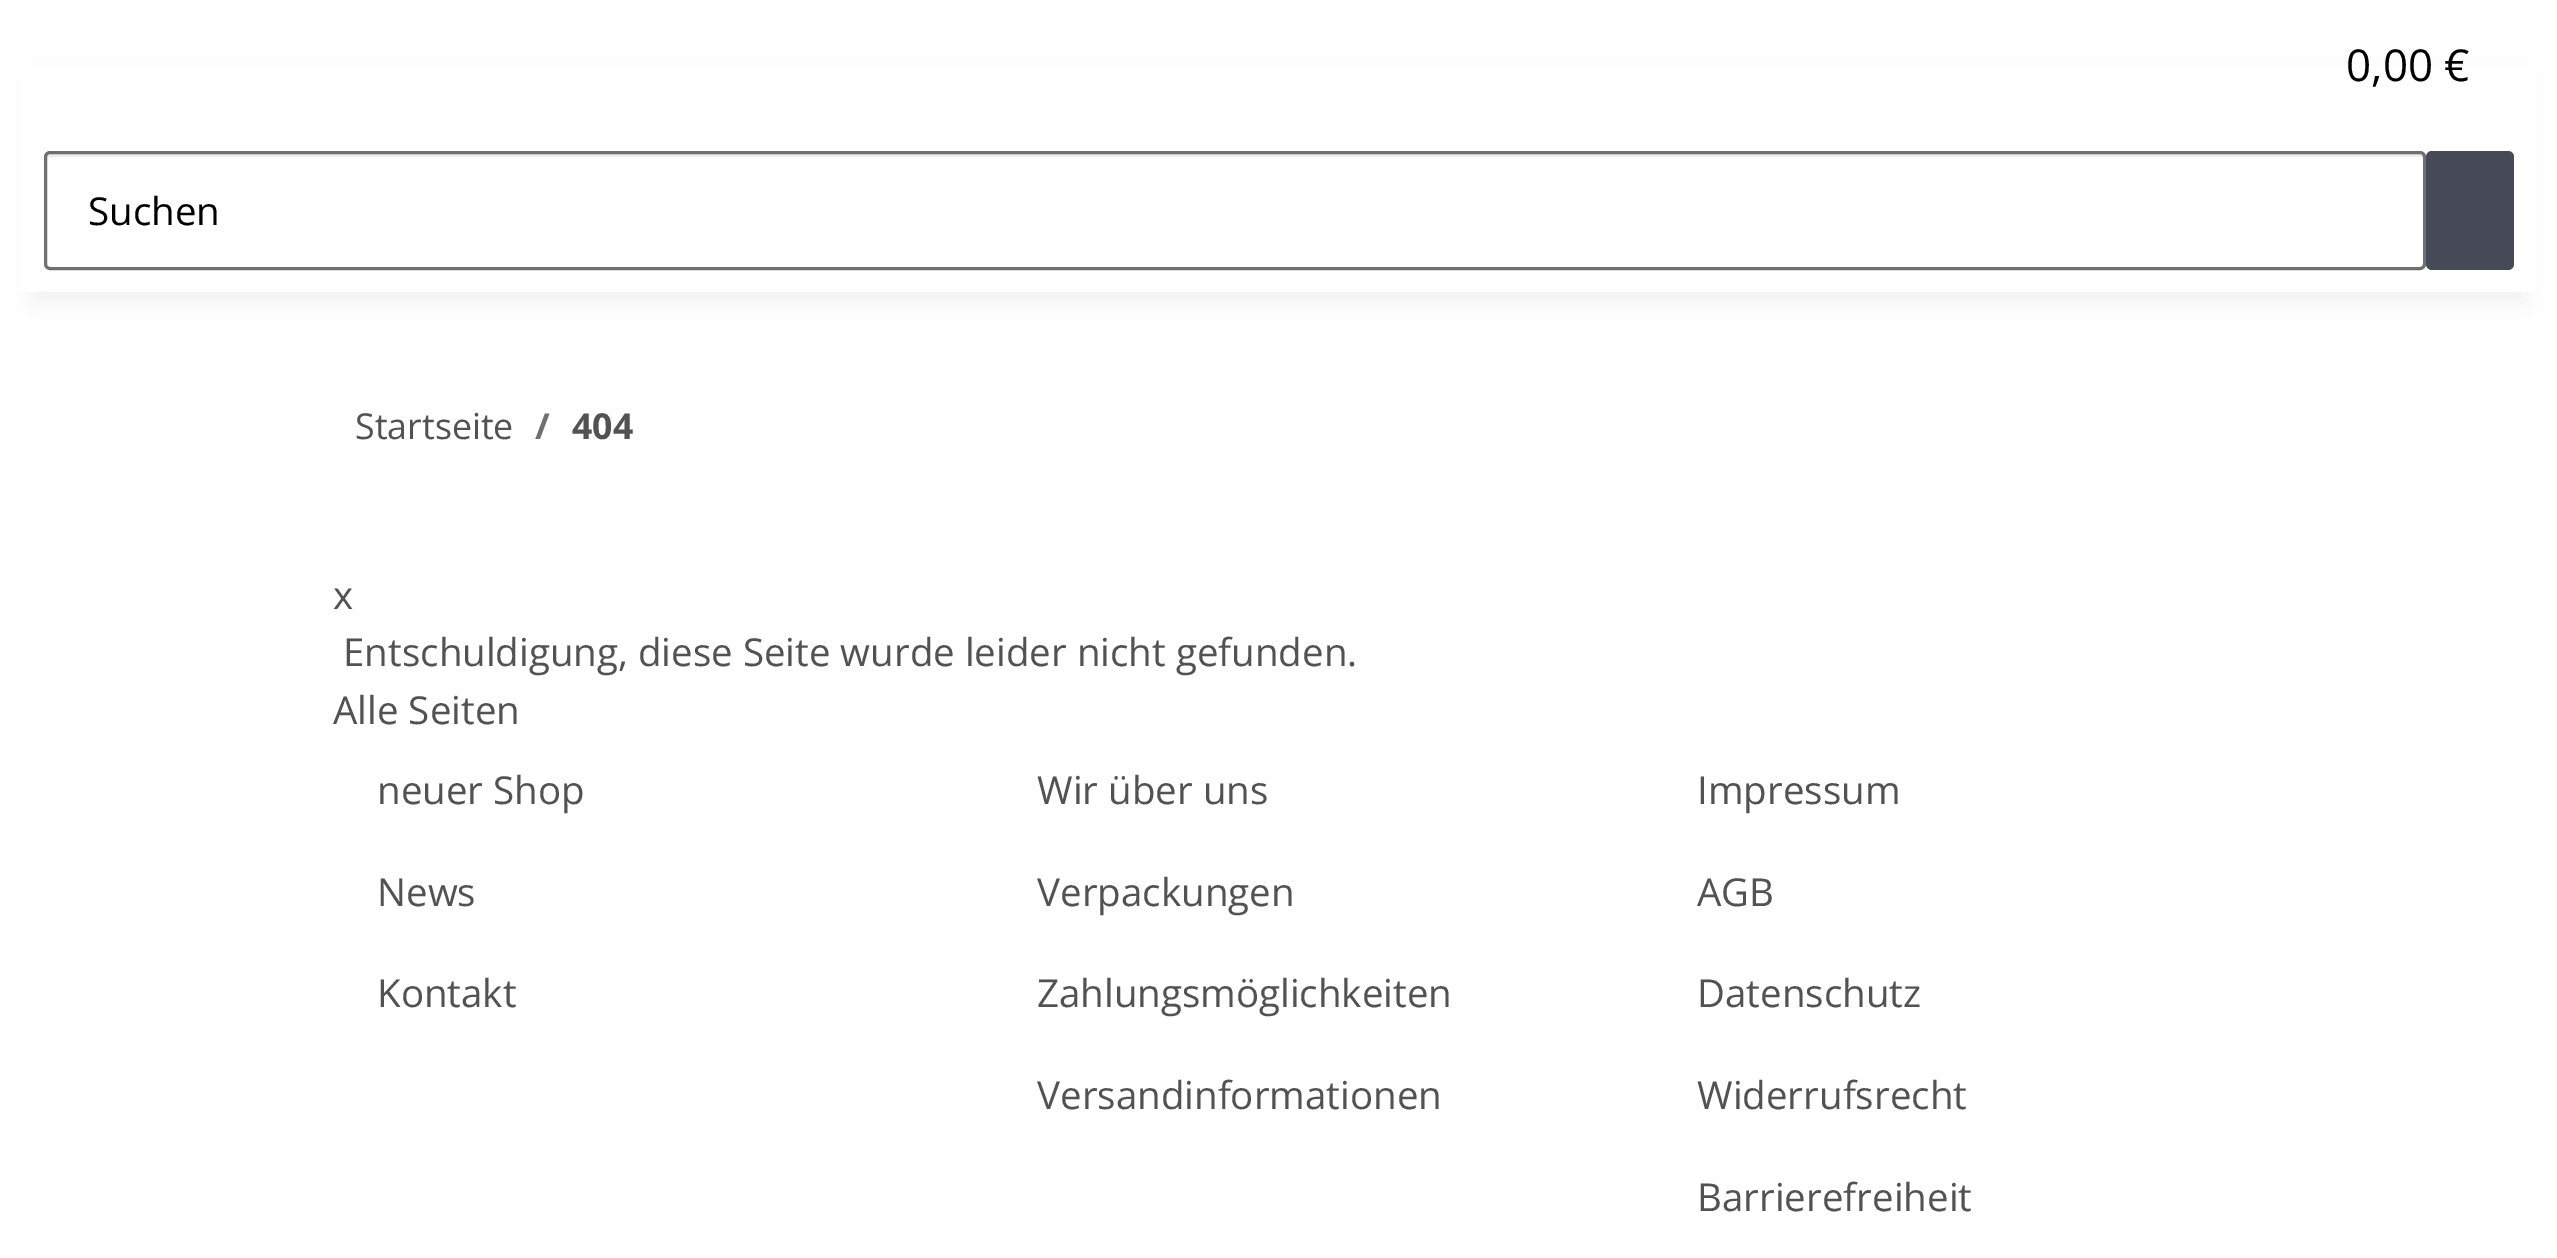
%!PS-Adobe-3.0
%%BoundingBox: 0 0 2557 1258
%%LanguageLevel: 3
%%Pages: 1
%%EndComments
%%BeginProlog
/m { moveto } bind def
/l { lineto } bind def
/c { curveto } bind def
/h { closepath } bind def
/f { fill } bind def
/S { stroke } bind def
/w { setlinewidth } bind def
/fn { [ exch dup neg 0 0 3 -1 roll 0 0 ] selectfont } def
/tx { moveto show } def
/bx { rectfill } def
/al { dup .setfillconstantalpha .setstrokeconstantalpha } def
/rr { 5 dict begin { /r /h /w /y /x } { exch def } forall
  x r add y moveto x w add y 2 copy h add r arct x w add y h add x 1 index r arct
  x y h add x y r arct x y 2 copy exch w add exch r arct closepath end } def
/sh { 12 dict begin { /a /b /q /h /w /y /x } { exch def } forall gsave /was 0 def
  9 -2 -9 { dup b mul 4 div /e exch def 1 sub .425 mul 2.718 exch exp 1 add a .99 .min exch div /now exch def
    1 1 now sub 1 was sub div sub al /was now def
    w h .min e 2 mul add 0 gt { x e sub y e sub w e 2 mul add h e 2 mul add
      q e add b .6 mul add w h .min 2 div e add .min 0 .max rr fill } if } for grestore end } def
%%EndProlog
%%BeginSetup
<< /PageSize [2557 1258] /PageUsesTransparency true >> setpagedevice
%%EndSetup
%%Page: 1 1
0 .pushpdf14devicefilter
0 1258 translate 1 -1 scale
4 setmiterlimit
1 setgray
0 0 2557 1258 bx
0 setgray
33 77 2492 226 0 12.5 0.06 sh
1 setgray
21 65 2516 227 bx
/OpenSans-Regular 44 fn
0 setgray
(0,00 €) 2346 81 tx
0.925 setgray
50 157 m 2420 157 l 2422 157 2423 158 2423 160 c 2423 157 l 2423 155 2422 154 2420 154 c 50 154 l 48 154 47 155 47 157 c 47 160 l 47 158 48 157 50 157 c h f
0.439 setgray
3 w
45.5 152.5 2379 116 4.5 rr S
/OpenSans-Regular 38.5 fn
0 setgray
(Suchen) 88 225 tx
0.278 0.29 0.341 setrgbcolor
2426 151 88 119 6 rr f
/OpenSans-Regular 35.75 fn
0.322 setgray
(Startseite) 355 439 tx
/OpenSans-Bold 35.75 fn
0.439 setgray
(/) 535 439 tx
0.322 setgray
(404) 572 439 tx
/OpenSans-Regular 38.5 fn
(x) 333 609 tx
(Entschuldigung, diese Seite wurde leider nicht gefunden.) 343 666 tx
(Alle Seiten) 333 724 tx
(neuer Shop) 377 804 tx
(News) 377 906 tx
(Kontakt) 377 1007 tx
(Wir über uns) 1037 804 tx
(Verpackungen) 1037 906 tx
(Zahlungsmöglichkeiten) 1037 1007 tx
(Versandinformationen) 1037 1109 tx
(Impressum) 1697 804 tx
(AGB) 1697 906 tx
(Datenschutz) 1697 1007 tx
(Widerrufsrecht) 1697 1109 tx
(Barrierefreiheit) 1697 1211 tx
.poppdf14devicefilter showpage
%%EOF
